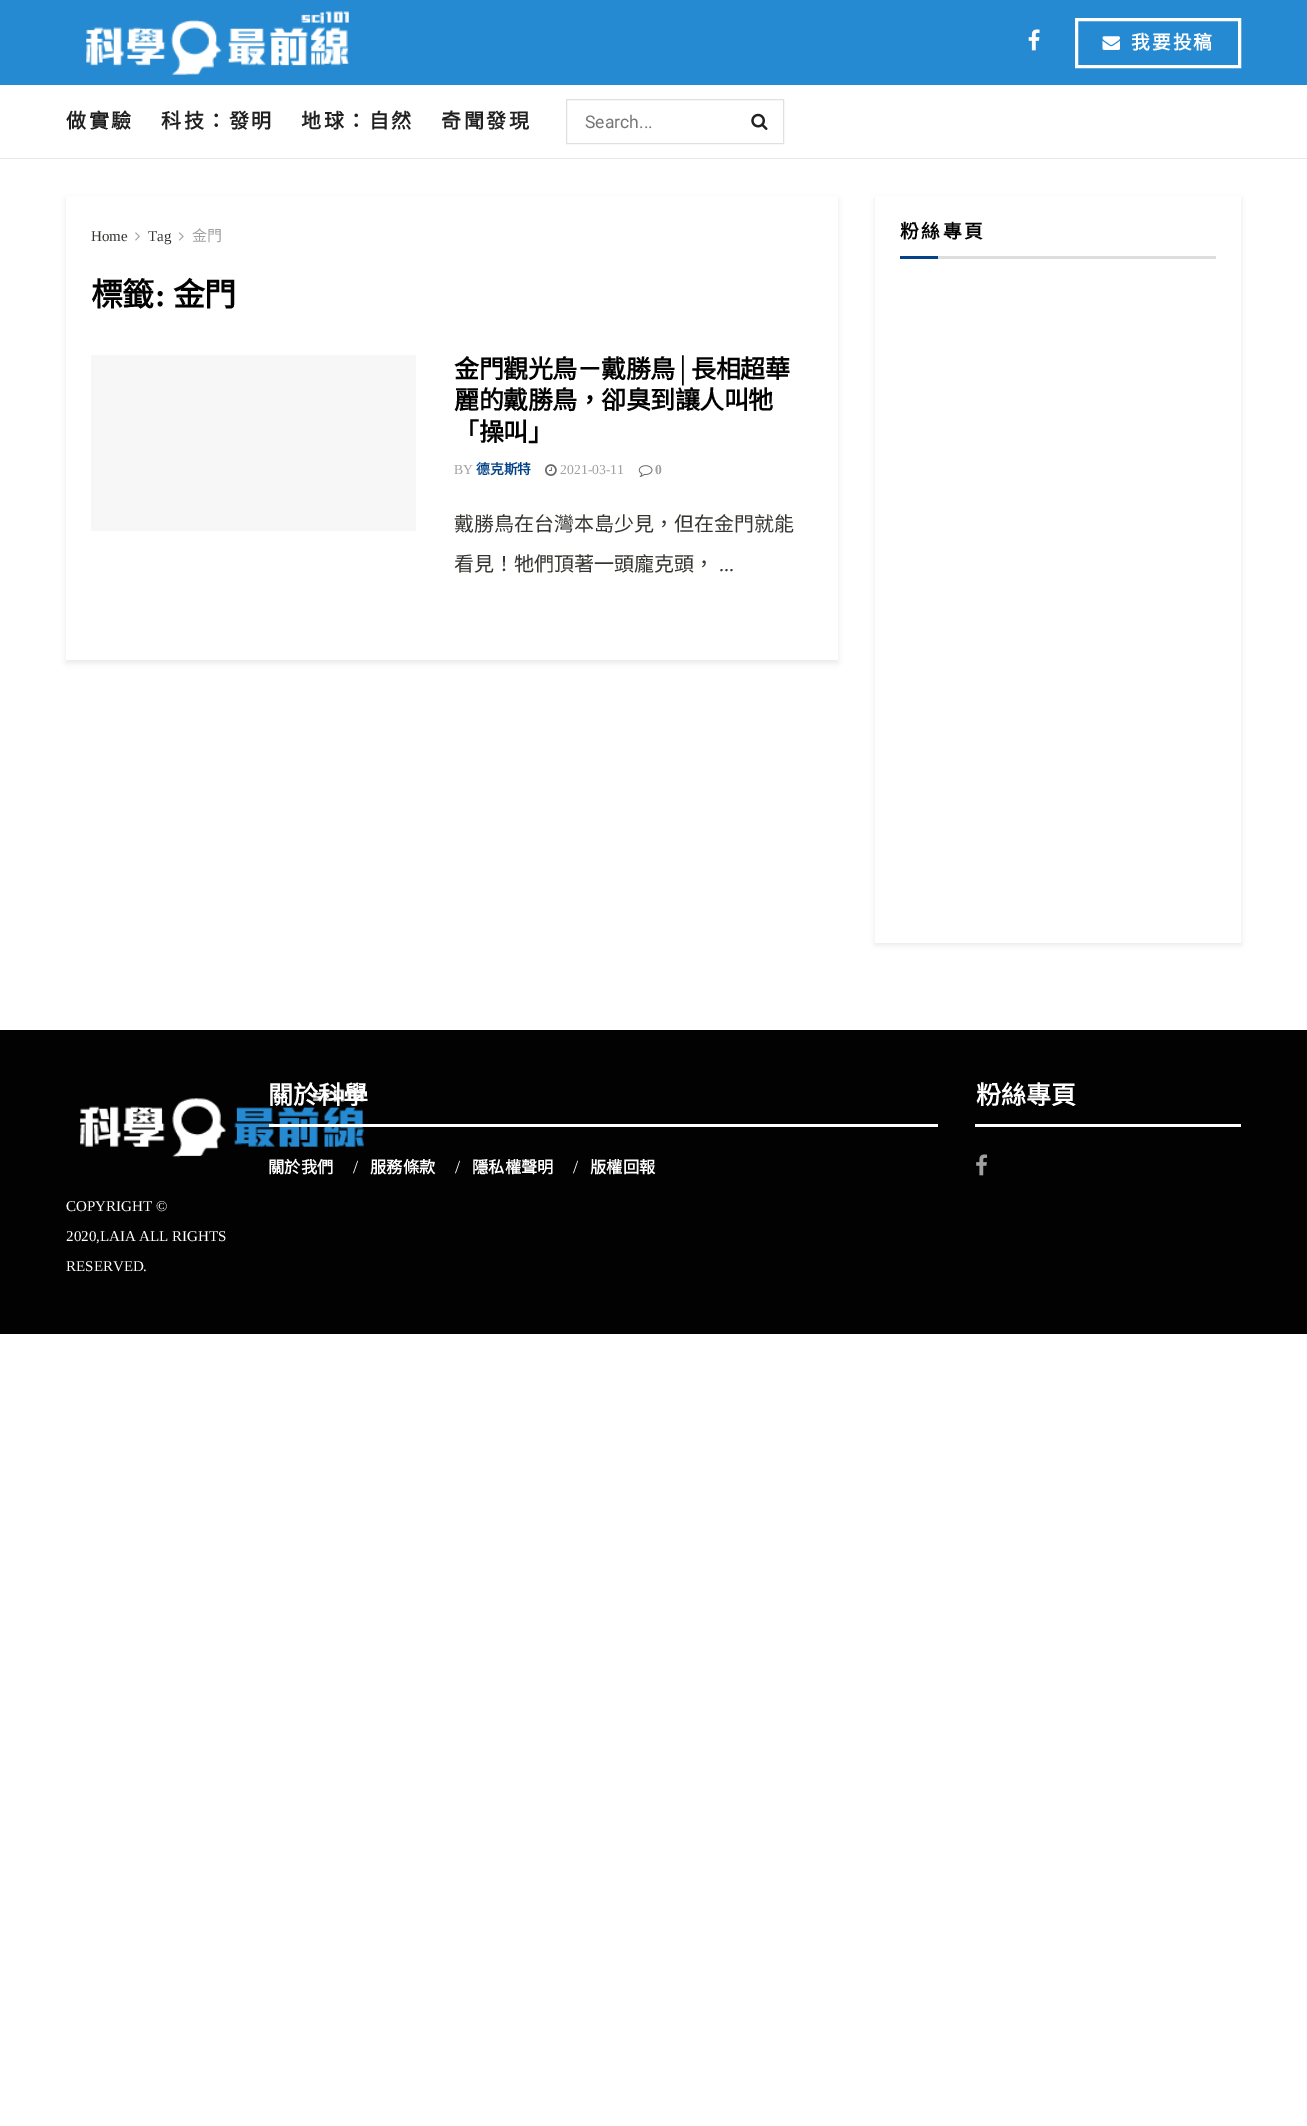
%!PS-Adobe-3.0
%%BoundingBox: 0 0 1307 2126
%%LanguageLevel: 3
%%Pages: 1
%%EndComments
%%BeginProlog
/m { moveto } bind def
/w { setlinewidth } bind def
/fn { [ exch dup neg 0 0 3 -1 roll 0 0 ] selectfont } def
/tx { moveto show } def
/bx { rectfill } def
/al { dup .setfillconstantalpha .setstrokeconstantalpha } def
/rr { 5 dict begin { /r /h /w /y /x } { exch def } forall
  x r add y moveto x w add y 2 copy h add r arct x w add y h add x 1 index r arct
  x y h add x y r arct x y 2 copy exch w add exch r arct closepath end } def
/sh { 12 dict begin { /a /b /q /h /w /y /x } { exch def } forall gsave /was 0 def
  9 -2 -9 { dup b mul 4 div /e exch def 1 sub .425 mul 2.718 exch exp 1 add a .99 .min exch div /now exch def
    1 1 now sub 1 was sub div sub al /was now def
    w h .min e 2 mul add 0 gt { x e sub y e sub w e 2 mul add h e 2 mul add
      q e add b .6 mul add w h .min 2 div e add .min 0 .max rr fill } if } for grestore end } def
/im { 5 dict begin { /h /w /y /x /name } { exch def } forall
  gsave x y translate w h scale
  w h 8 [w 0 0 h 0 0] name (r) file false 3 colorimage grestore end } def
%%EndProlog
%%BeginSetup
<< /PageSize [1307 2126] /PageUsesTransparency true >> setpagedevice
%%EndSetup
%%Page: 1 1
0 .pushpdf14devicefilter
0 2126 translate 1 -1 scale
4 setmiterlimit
1 setgray
0 0 1307 2126 bx
0.145 0.541 0.82 setrgbcolor
0 0 1307 85 bx
(image0.raw) 86 11 263 64 im
(image1.raw) 1028 29 12 22 im
1 setgray
3 w
1076.5 19.5 163 47 rectstroke
(image2.raw) 1102 36 18 14 im
/NotoSansCJKTC-Bold 18.75 fn
1131 49 m 2 0 (我要投稿) ashow
0.91 setgray
0 158 1307 1 bx
/NotoSansCJKTC-Bold 20 fn
0.129 setgray
66 128 m 2.5 0 (做實驗) ashow
161 128 m 2.5 0 (科技：發明) ashow
301 128 m 2.5 0 (地球：自然) ashow
441 128 m 2.5 0 (奇聞發現) ashow
0.878 setgray
1 w
566.5 99.5 217 44 rectstroke
/Roboto-Regular 17.5 fn
0.459 setgray
(Search...) 585 128 tx
(image3.raw) 751 113 17 17 im
0 setgray
66 199 772 464 0 2.5 0.08 sh
1 setgray
66 196 772 464 bx
/LiberationSerif-Regular 15 fn
0.208 0.208 0.192 setrgbcolor
(Home) 91 241 tx
(image4.raw) 135 232 5 9 im
(Tag) 148 241 tx
(image5.raw) 179 232 5 9 im
/NotoSansCJKTC-Regular 15 fn
0.627 setgray
(金門) 192 241 tx
/NotoSansCJKTC-Bold 32 fn
0.008 setgray
91 306 m -1 0 (標籤) ashow
/LiberationSerif-Bold 32 fn
155 306 m -1 0 (:) ashow
/NotoSansCJKTC-Bold 32 fn
173 306 m -1 0 (金門) ashow
0.969 setgray
91 355 325 176 bx
/NotoSansCJKTC-Bold 25 fn
0.008 setgray
454 378 m -0.5 0 (金門觀光鳥－戴勝鳥) ashow
/LiberationSerif-Bold 25 fn
674 378 m -0.5 0 (│) ashow
/NotoSansCJKTC-Bold 25 fn
691 378 m -0.5 0 (長相超華) ashow
454 409 m -0.5 0 (麗的戴勝鳥，卻臭到讓人叫牠) ashow
454 441 m -0.5 0 (「操叫」) ashow
/LiberationSerif-Regular 13.75 fn
0.627 setgray
(BY) 454 474 tx
/NotoSansCJKTC-Bold 13.75 fn
0.016 0.263 0.537 setrgbcolor
(德克斯特) 476 474 tx
(image6.raw) 545 464 12 12 im
/LiberationSerif-Regular 13.75 fn
0.627 setgray
(2021-03-11) 560 474 tx
(image7.raw) 638 465 15 12 im
/LiberationSerif-Bold 13.75 fn
(0) 655 474 tx
/NotoSansCJKTC-Regular 20 fn
0.208 0.208 0.192 setrgbcolor
(戴勝鳥在台灣本島少見，但在金門就能) 454 531 tx
(看見！牠們頂著一頭龐克頭，) 454 571 tx
/LiberationSerif-Regular 20 fn
(...) 719 571 tx
0 setgray
875 199 366 746 0 2.5 0.08 sh
1 setgray
875 196 366 747 bx
0.867 setgray
938 256 278 3 bx
/NotoSansCJKTC-Bold 18.75 fn
0.008 setgray
900 238 m 2.5 0 (粉絲專頁) ashow
0.016 0.263 0.537 setrgbcolor
900 256 38 3 bx
0.008 setgray
0 1030 1307 304 bx
(image9.raw) 80 1089 284 69 im
1 setgray
269 1124 669 3 bx
/NotoSansCJKTC-Bold 25 fn
(關於科學) 268 1104 tx
/NotoSansCJKTC-Bold 16.25 fn
(關於我們) 268 1173 tx
/LiberationSerif-Regular 18.75 fn
(/) 353 1173 tx
/NotoSansCJKTC-Bold 16.25 fn
(服務條款) 370 1173 tx
/LiberationSerif-Regular 18.75 fn
(/) 455 1173 tx
/NotoSansCJKTC-Bold 16.25 fn
(隱私權聲明) 472 1173 tx
/LiberationSerif-Regular 18.75 fn
(/) 573 1173 tx
/NotoSansCJKTC-Bold 16.25 fn
(版權回報) 590 1173 tx
975 1124 266 3 bx
/NotoSansCJKTC-Bold 25 fn
(粉絲專頁) 976 1104 tx
(image8.raw) 976 1154 12 22 im
/LiberationSerif-Regular 15 fn
(COPYRIGHT ©) 66 1211 tx
(2020,LAIA ALL RIGHTS) 66 1241 tx
(RESERVED.) 66 1271 tx
.poppdf14devicefilter showpage
%%EOF
